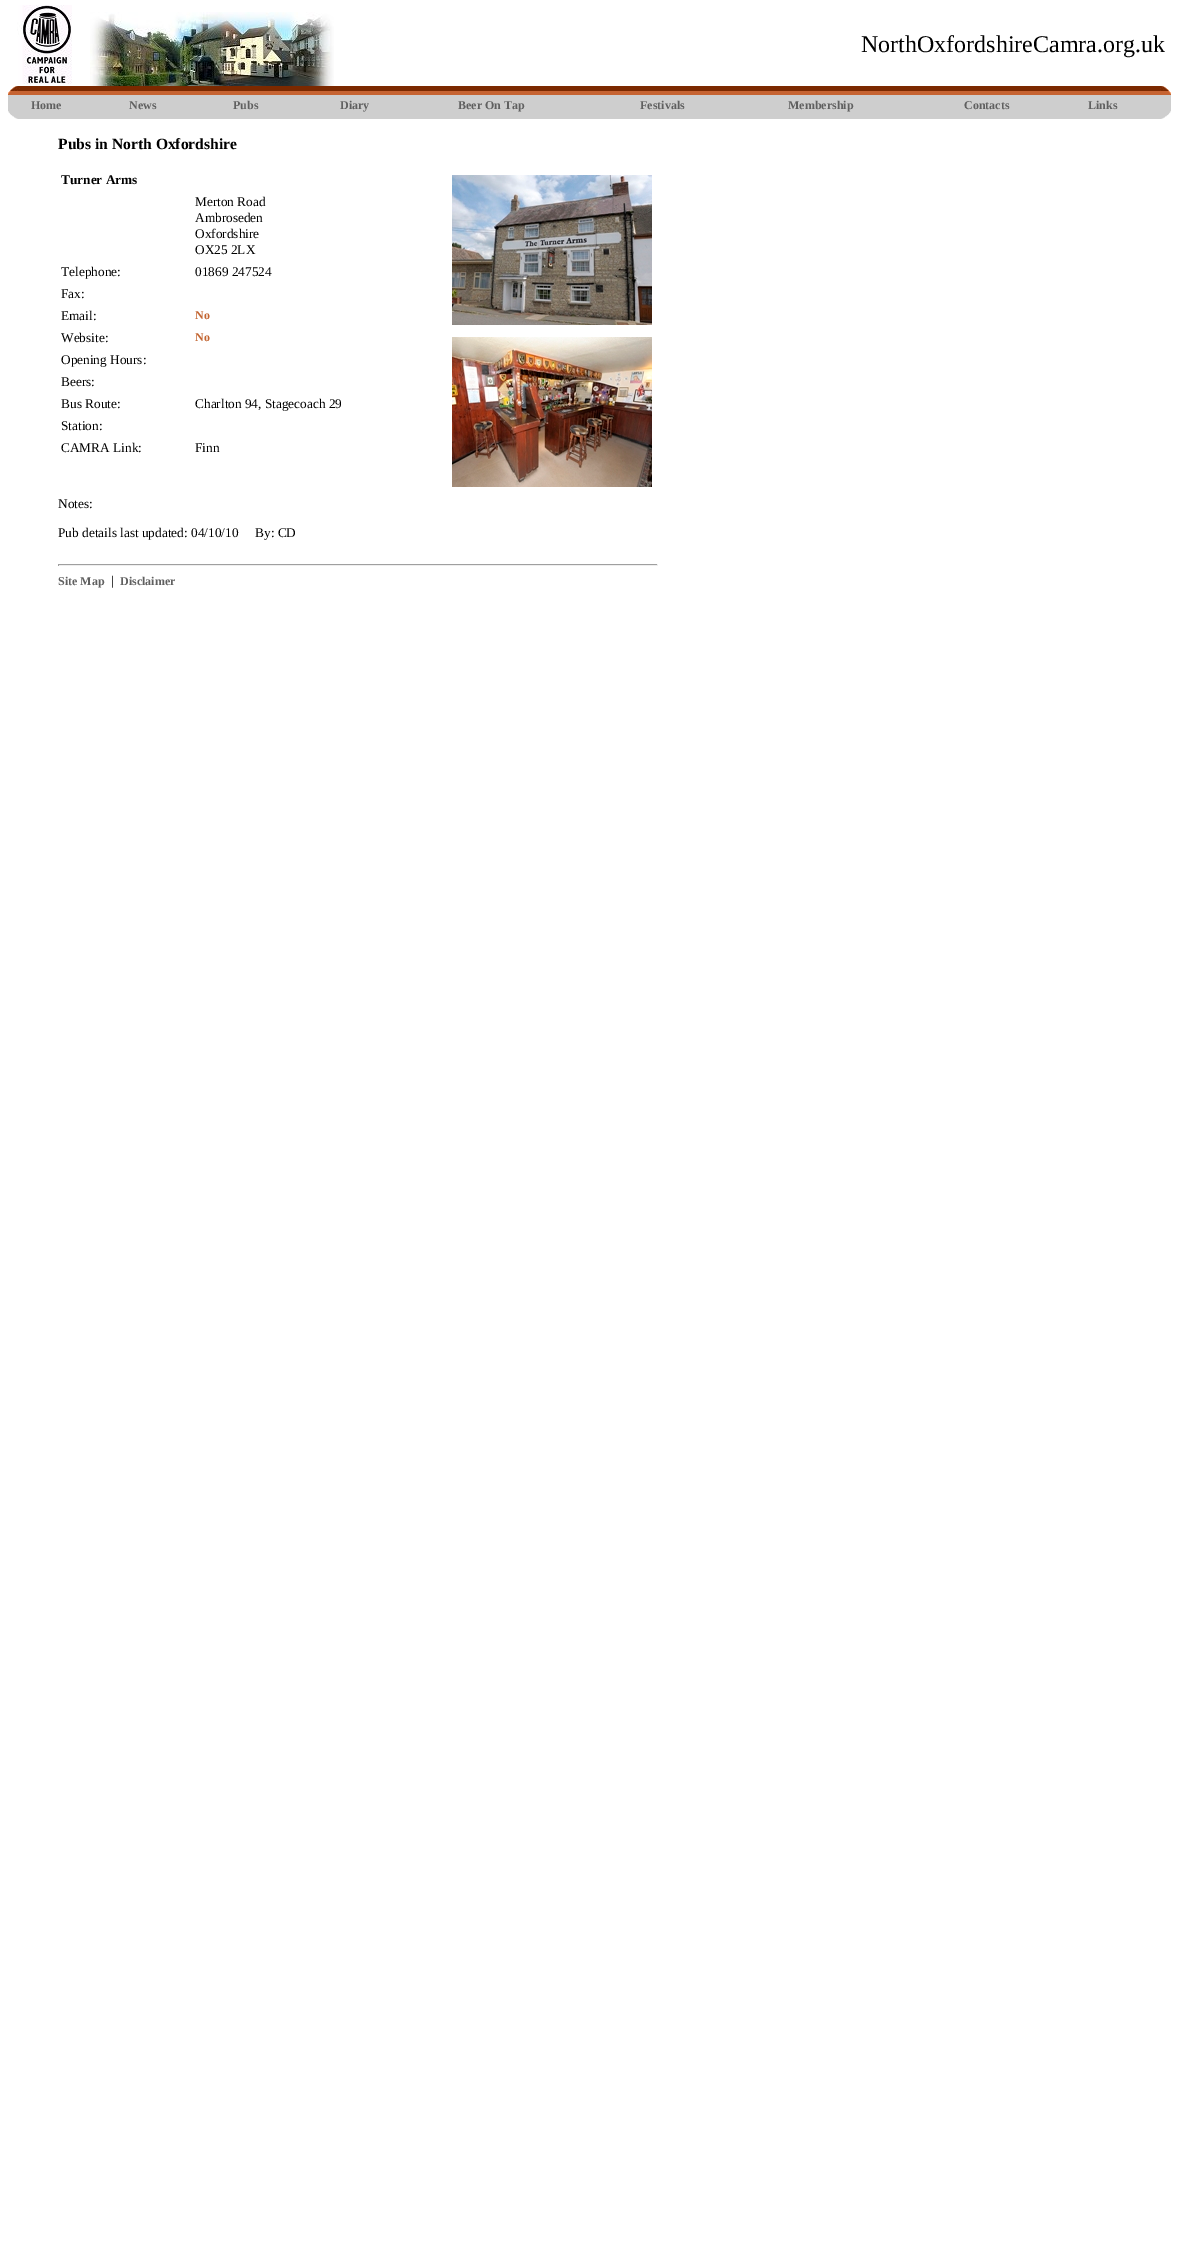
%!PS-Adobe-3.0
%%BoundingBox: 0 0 1179 2264
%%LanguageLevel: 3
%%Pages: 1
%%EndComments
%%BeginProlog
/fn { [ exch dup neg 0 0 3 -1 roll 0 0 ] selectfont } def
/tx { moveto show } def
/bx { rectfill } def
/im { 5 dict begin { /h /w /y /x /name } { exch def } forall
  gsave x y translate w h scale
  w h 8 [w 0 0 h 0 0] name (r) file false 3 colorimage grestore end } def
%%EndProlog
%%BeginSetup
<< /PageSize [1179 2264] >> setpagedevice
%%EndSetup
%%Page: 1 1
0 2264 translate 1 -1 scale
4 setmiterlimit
1 setgray
0 0 1179 2264 bx
(image0.raw) 17 5 55 79 im
(image1.raw) 90 12 244 74 im
/LiberationSerif-Regular 24 fn
0 setgray
(NorthOxfordshireCamra.org.uk) 861 52 tx
(image2.raw) 8 86 13 33 im
(image3.raw) 21 86 1137 33 im
/LiberationSerif-Bold 12 fn
0.376 setgray
(Home) 31 109 tx
(News) 129 109 tx
(Pubs) 233 109 tx
(Diary) 340 109 tx
(Beer On Tap) 458 109 tx
(Festivals) 640 109 tx
(Membership) 788 109 tx
(Contacts) 964 109 tx
(Links) 1088 109 tx
(image4.raw) 1158 86 13 33 im
/LiberationSerif-Bold 15.6 fn
0 setgray
(Pubs in North Oxfordshire) 58 149 tx
/LiberationSerif-Bold 13.3 fn
(Turner Arms) 61 184 tx
/LiberationSerif-Regular 13.3 fn
(Merton Road) 195 206 tx
(Ambroseden) 195 222 tx
(Oxfordshire) 195 238 tx
(OX25 2LX) 195 254 tx
(Telephone:) 61 276 tx
(01869 247524) 195 276 tx
(Fax:) 61 298 tx
(Email:) 61 320 tx
/LiberationSerif-Bold 12 fn
0.765 0.396 0.192 setrgbcolor
(No) 195 319 tx
/LiberationSerif-Regular 13.3 fn
0 setgray
(Website:) 61 342 tx
/LiberationSerif-Bold 12 fn
0.765 0.396 0.192 setrgbcolor
(No) 195 341 tx
/LiberationSerif-Regular 13.3 fn
0 setgray
(Opening Hours:) 61 364 tx
(Beers:) 61 386 tx
(Bus Route:) 61 408 tx
(Charlton 94, Stagecoach 29) 195 408 tx
(Station:) 61 430 tx
(CAMRA Link:) 61 452 tx
(Finn) 195 452 tx
(image5.raw) 452 175 200 150 im
(image6.raw) 452 337 200 150 im
(Notes:) 58 508 tx
(Pub details last updated: 04/10/10) 58 537 tx
(By: CD) 255 537 tx
0.624 setgray
58 564 600 1 bx
0.933 setgray
657 564 1 2 bx
58 565 600 1 bx
0.624 setgray
58 564 1 2 bx
/LiberationSerif-Bold 12 fn
0.376 setgray
(Site Map) 58 585 tx
/LiberationSerif-Regular 13.3 fn
0 setgray
(|) 111 585 tx
/LiberationSerif-Bold 12 fn
0.376 setgray
(Disclaimer) 120 585 tx
showpage
%%EOF
